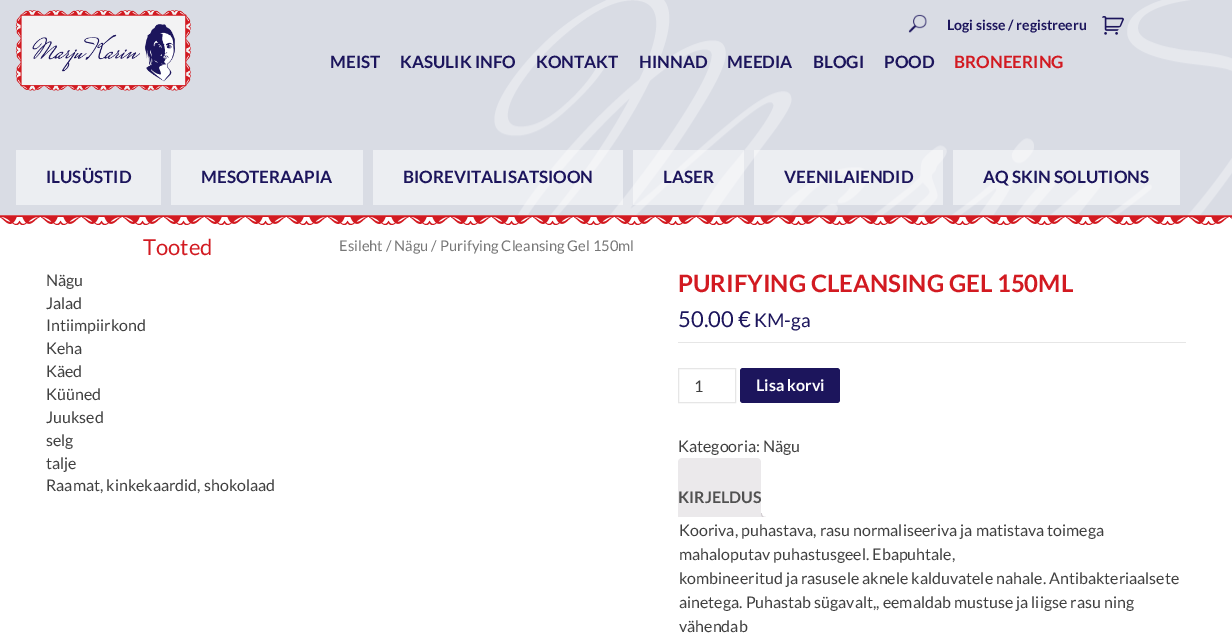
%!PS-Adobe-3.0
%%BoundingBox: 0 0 1232 639
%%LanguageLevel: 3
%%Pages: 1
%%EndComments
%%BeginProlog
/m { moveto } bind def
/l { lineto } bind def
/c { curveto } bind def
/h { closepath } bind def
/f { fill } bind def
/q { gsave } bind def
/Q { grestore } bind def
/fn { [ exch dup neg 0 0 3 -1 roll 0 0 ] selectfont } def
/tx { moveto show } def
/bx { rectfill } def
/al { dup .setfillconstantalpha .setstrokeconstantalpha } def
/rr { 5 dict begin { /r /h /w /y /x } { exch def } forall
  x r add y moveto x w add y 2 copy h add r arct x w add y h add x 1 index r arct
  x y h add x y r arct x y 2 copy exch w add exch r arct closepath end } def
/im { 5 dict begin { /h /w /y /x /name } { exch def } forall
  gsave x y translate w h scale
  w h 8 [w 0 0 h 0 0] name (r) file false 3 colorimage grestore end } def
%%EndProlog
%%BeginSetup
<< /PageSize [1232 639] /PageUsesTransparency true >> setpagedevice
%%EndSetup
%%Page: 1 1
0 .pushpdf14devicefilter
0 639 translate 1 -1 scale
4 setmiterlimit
0.851 0.863 0.894 setrgbcolor
0 0 1232 639 bx
(image0.raw) 494 0 738 215 im
(image1.raw) 16 10 175 81 im
(image2.raw) 908 14 19 19 im
/Lato-Bold 14 fn
0.11 0.082 0.361 setrgbcolor
(Logi sisse / registreeru) 947 30 tx
(image3.raw) 1102 16 22 19 im
/Lato-Bold 17 fn
(MEIST) 330 68 tx
(KASULIK INFO) 400 68 tx
(KONTAKT) 536 68 tx
(HINNAD) 639 68 tx
(MEEDIA) 727 68 tx
(BLOGI) 813 68 tx
(POOD) 884 68 tx
0.824 0.102 0.129 setrgbcolor
(BRONEERING) 954 68 tx
0.925 0.933 0.949 setrgbcolor
16 150 145 55 bx
0.11 0.082 0.361 setrgbcolor
(ILUSÜSTID) 46 183 tx
0.925 0.933 0.949 setrgbcolor
171 150 192 55 bx
0.11 0.082 0.361 setrgbcolor
(MESOTERAAPIA) 201 183 tx
0.5 al
1 setgray
373 150 250 55 bx
1 al
0.11 0.082 0.361 setrgbcolor
(BIOREVITALISATSIOON) 403 183 tx
0.5 al
1 setgray
633 150 111 55 bx
1 al
0.11 0.082 0.361 setrgbcolor
(LASER) 663 183 tx
0.5 al
1 setgray
754 150 189 55 bx
1 al
0.11 0.082 0.361 setrgbcolor
(VEENILAIENDID) 784 183 tx
0.5 al
1 setgray
953 150 227 55 bx
1 al
0.11 0.082 0.361 setrgbcolor
(AQ SKIN SOLUTIONS) 983 183 tx
1 setgray
0 215 1232 424 bx
(image4.raw) 0 215 1232 10 im
/Lato-Regular 22 fn
0.824 0.102 0.129 setrgbcolor
(Tooted) 143 255 tx
/Lato-Regular 16 fn
0.251 setgray
(Nägu) 46 286 tx
(Jalad) 46 309 tx
(Intiimpiirkond) 46 331 tx
(Keha) 46 354 tx
(Käed) 46 377 tx
(Küüned) 46 400 tx
(Juuksed) 46 423 tx
(selg) 46 446 tx
(talje) 46 469 tx
(Raamat, kinkekaardid, shokolaad) 46 491 tx
/Lato-Regular 14.75 fn
0.467 setgray
(Esileht / Nägu / Purifying Cleansing Gel 150ml) 339 251 tx
/Lato-Bold 24 fn
0.824 0.102 0.129 setrgbcolor
(PURIFYING CLEANSING GEL 150ML) 678 292 tx
/Lato-Regular 22 fn
0.11 0.082 0.361 setrgbcolor
(50.00 €) 678 327 tx
/Lato-Regular 19 fn
(KM-ga) 754 327 tx
0.902 setgray
678 342 508 1 bx
678.5 368.5 57 34 rectstroke
/Lato-Regular 16 fn
0.251 setgray
(1) 694 392 tx
0.11 0.082 0.361 setrgbcolor
740 368 100 35 3 rr f
/Lato-Bold 16 fn
1 setgray
(Lisa korvi) 756 391 tx
/Lato-Regular 16 fn
0.251 setgray
(Kategooria: Nägu) 678 452 tx
0.922 0.914 0.922 setrgbcolor
682 458 m 757 458 l 759 458 761 460 761 462 c 761 517 l 678 517 l 678 462 l 678 460 680 458 682 458 c h f
/Lato-Bold 16 fn
0.318 setgray
(KIRJELDUS) 678 503 tx
q
678 458 508 59 rectclip
0.922 0.914 0.922 setrgbcolor
759 515 m 759 518.5 760.5 520 764 520 c 764 518 l 762.5 517.5 761.5 516.5 761 515 c h f
0.827 0.808 0.824 setrgbcolor
761 513 m 766 513 l 766 518 l 763.5 518 761 517 761 514 c h 762 513 m 766 513 l 766 517 l 764 517 762 516.5 762 514 c h eofill
Q
/Lato-Regular 16 fn
0.251 setgray
(Kooriva, puhastava, rasu normaliseeriva ja matistava toimega) 679 536 tx
(mahaloputav puhastusgeel. Ebapuhtale,) 679 560 tx
(kombineeritud ja rasusele aknele kalduvatele nahale. Antibakteriaalsete) 679 584 tx
(ainetega. Puhastab sügavalt,, eemaldab mustuse ja liigse rasu ning) 679 608 tx
(vähendab) 679 632 tx
.poppdf14devicefilter showpage
%%EOF
